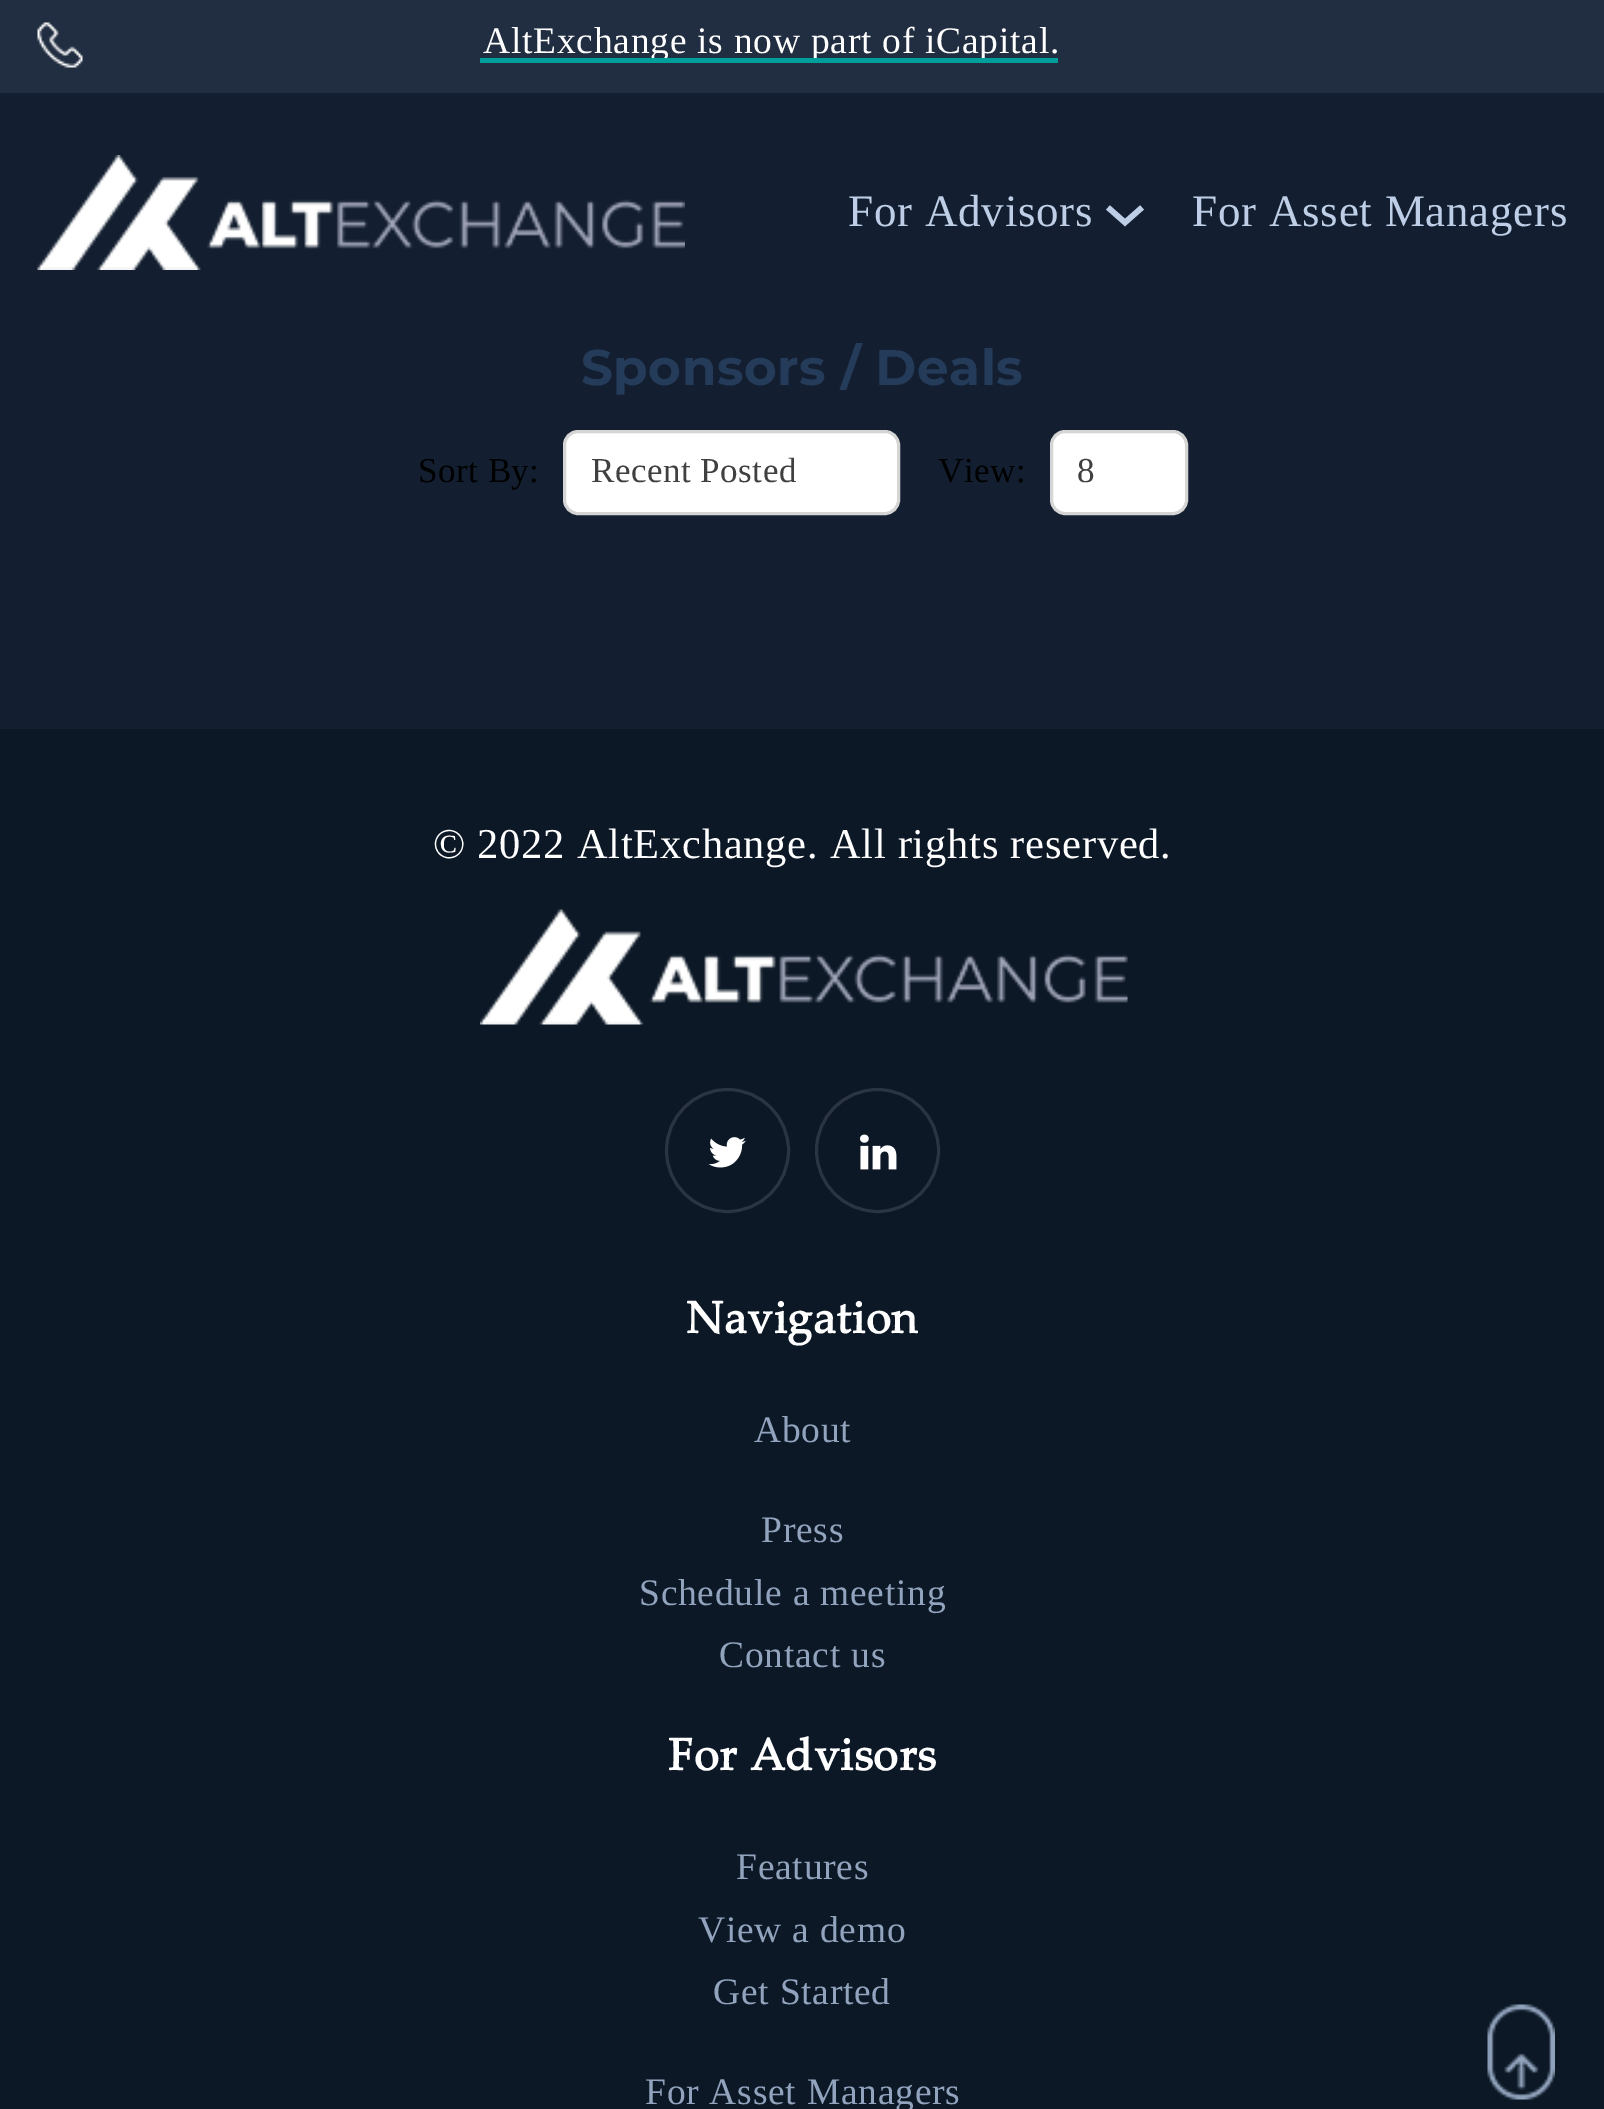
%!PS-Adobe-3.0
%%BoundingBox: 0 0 1604 2109
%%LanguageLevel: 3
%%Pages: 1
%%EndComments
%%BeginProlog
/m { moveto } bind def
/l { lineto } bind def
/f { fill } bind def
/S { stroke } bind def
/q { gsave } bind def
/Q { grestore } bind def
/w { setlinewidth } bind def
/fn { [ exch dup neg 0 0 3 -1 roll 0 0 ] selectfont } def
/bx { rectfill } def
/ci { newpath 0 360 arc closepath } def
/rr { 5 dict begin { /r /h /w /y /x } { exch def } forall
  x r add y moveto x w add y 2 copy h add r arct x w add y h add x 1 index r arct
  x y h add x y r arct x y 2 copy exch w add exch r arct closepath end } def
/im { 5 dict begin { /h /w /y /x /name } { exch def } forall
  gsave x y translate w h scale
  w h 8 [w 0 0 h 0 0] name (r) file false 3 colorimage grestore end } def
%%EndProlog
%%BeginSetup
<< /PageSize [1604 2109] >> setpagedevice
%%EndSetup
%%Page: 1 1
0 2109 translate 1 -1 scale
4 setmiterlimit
0.075 0.122 0.188 setrgbcolor
0 0 1604 2109 bx
0.129 0.18 0.255 setrgbcolor
0 0 1604 93 bx
(image0.raw) 37 22 46 46 im
/LiberationSerif-Regular 37.5 fn
1 setgray
483 53 m 0.75 0 (AltExchange is now part of iCapital.) ashow
0 0.624 0.608 setrgbcolor
480 58 578 5 bx
(image1.raw) 37 155 648 115 im
/LiberationSerif-Regular 45 fn
0.741 0.808 0.902 setrgbcolor
848 226 m 0.75 0 (For Advisors) ashow
5.6 w
1108 207.5 m 1125 222.5 l 1142 207.5 l S
1192 226 m 0.75 0 (For Asset Managers) ashow
/Montserrat-Bold 50 fn
0.145 0.231 0.353 setrgbcolor
581 385 m 0.5 0 (Sponsors / Deals) ashow
/LiberationSerif-Regular 35 fn
0 setgray
418 482 m 0.5 0 (Sort By:) ashow
1 setgray
564.5 431.5 334 82 13.5 rr q f Q
0.835 setgray
3 w
S
0.251 setgray
591 482 m 0.5 0 (Recent Posted) ashow
0 setgray
938 482 m 0.5 0 (View:) ashow
1 setgray
1051.5 431.5 135 82 13.5 rr q f Q
0.835 setgray
S
0.251 setgray
1077 482 m 0.5 0 (8) ashow
0.047 0.094 0.149 setrgbcolor
0 729 1604 1380 bx
/LiberationSerif-Regular 42.5 fn
1 setgray
433 858 m 0.75 0 (© 2022 AltExchange. All rights reserved.) ashow
(image2.raw) 480 909 648 116 im
0.169 0.204 0.255 setrgbcolor
727.5 1150.5 61 ci S
(image3.raw) 708 1137 38 31 im
877.5 1150.5 61 ci S
(image4.raw) 860 1134 37 36 im
(image5.raw) 1487 2004 68 96 im
/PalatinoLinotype-Bold 45 fn
1 setgray
686 1333 m 0.75 0 (Navigation) ashow
/LiberationSerif-Regular 37.5 fn
0.573 0.643 0.741 setrgbcolor
754 1442 m 0.75 0 (About) ashow
761 1542 m 0.75 0 (Press) ashow
639 1605 m 0.75 0 (Schedule a meeting) ashow
719 1667 m 0.75 0 (Contact us) ashow
/PalatinoLinotype-Bold 45 fn
1 setgray
668 1770 m 0.75 0 (For Advisors) ashow
/LiberationSerif-Regular 37.5 fn
0.573 0.643 0.741 setrgbcolor
736 1879 m 0.75 0 (Features) ashow
698 1942 m 0.75 0 (View a demo) ashow
713 2004 m 0.75 0 (Get Started) ashow
645 2104 m 0.75 0 (For Asset Managers) ashow
showpage
%%EOF
